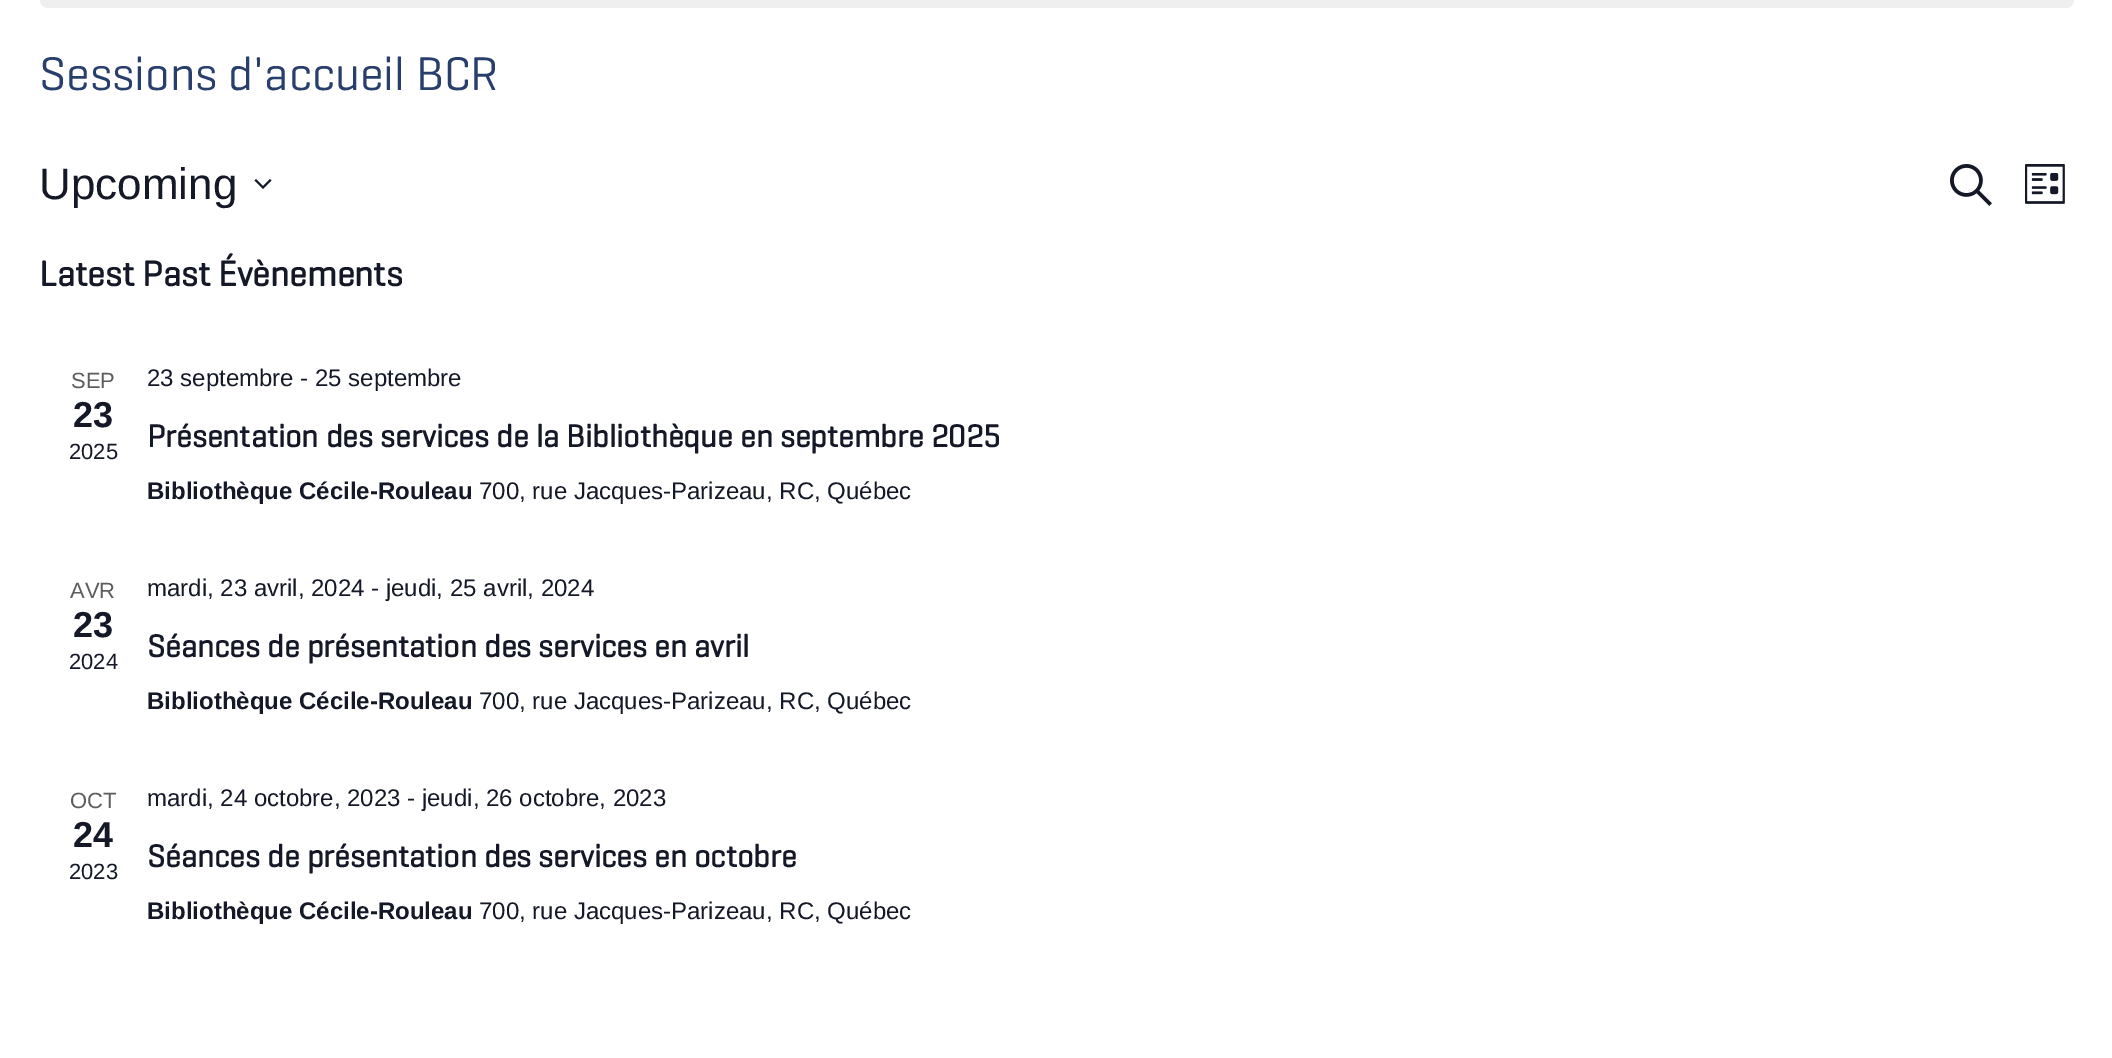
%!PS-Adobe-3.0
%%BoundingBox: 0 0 2112 1058
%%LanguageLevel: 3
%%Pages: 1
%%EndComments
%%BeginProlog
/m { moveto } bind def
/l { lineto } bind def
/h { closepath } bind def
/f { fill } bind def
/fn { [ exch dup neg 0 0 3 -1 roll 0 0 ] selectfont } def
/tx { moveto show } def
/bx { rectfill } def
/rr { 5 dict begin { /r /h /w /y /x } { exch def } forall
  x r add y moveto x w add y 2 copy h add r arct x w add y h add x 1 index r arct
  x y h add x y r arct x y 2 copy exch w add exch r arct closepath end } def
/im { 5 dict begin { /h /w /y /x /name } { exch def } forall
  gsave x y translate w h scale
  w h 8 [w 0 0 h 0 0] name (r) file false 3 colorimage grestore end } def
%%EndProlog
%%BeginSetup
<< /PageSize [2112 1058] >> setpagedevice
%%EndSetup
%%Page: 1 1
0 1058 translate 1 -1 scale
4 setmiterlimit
1 setgray
0 0 2112 1058 bx
0.937 0.937 0.941 setrgbcolor
40 -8 2034 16 8 rr f
/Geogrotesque-Regular 48 fn
0.157 0.243 0.424 setrgbcolor
(Sessions d'accueil BCR) 39 90 tx
/LiberationSans-Regular 44 fn
0.078 0.094 0.153 setrgbcolor
(Upcoming) 39 199 tx
256 179 m 263 186 l 270 179 l 271.5 180.5 l 263 189 l 254.5 180.5 l h eofill
(image0.raw) 1950 164 42 42 im
(image1.raw) 2025 164 40 40 im
/Geogrotesque-Bold 36 fn
(Latest Past Évènements) 39 286 tx
/LiberationSans-Regular 22 fn
0.365 setgray
(SEP) 71 388 tx
/LiberationSans-Bold 36 fn
0.078 0.094 0.153 setrgbcolor
(23) 73 427 tx
/LiberationSans-Regular 22 fn
(2025) 69 459 tx
/LiberationSans-Regular 24 fn
(23 septembre - 25 septembre) 147 386 tx
/Geogrotesque-Bold 32 fn
(Présentation des services de la Bibliothèque en septembre 2025) 147 447 tx
/LiberationSans-Bold 24 fn
(Bibliothèque Cécile-Rouleau) 147 499 tx
/LiberationSans-Regular 24 fn
(700, rue Jacques-Parizeau, RC, Québec) 479 499 tx
/LiberationSans-Regular 22 fn
0.365 setgray
(AVR) 70 598 tx
/LiberationSans-Bold 36 fn
0.078 0.094 0.153 setrgbcolor
(23) 73 637 tx
/LiberationSans-Regular 22 fn
(2024) 69 669 tx
/LiberationSans-Regular 24 fn
(mardi, 23 avril, 2024 - jeudi, 25 avril, 2024) 147 596 tx
/Geogrotesque-Bold 32 fn
(Séances de présentation des services en avril) 147 657 tx
/LiberationSans-Bold 24 fn
(Bibliothèque Cécile-Rouleau) 147 709 tx
/LiberationSans-Regular 24 fn
(700, rue Jacques-Parizeau, RC, Québec) 479 709 tx
/LiberationSans-Regular 22 fn
0.365 setgray
(OCT) 70 808 tx
/LiberationSans-Bold 36 fn
0.078 0.094 0.153 setrgbcolor
(24) 73 847 tx
/LiberationSans-Regular 22 fn
(2023) 69 879 tx
/LiberationSans-Regular 24 fn
(mardi, 24 octobre, 2023 - jeudi, 26 octobre, 2023) 147 806 tx
/Geogrotesque-Bold 32 fn
(Séances de présentation des services en octobre) 147 867 tx
/LiberationSans-Bold 24 fn
(Bibliothèque Cécile-Rouleau) 147 919 tx
/LiberationSans-Regular 24 fn
(700, rue Jacques-Parizeau, RC, Québec) 479 919 tx
showpage
%%EOF
